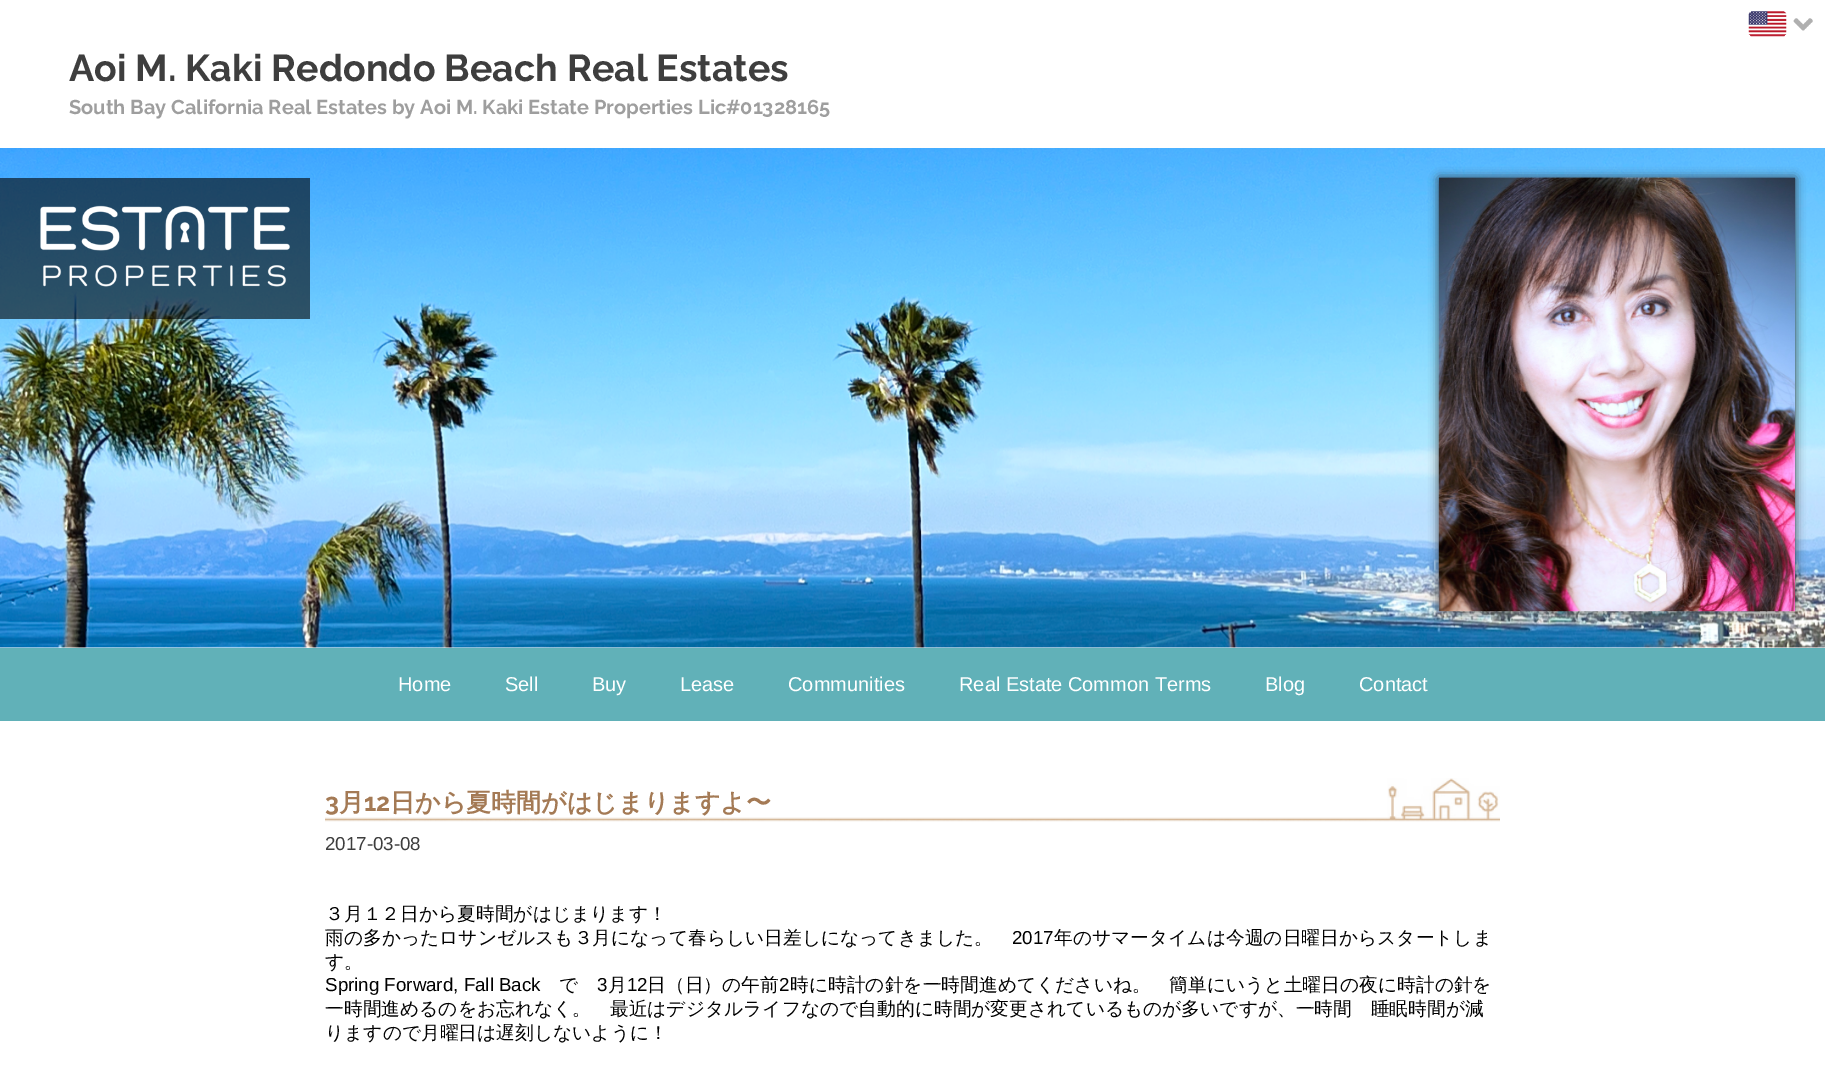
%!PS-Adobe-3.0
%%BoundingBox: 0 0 1825 1080
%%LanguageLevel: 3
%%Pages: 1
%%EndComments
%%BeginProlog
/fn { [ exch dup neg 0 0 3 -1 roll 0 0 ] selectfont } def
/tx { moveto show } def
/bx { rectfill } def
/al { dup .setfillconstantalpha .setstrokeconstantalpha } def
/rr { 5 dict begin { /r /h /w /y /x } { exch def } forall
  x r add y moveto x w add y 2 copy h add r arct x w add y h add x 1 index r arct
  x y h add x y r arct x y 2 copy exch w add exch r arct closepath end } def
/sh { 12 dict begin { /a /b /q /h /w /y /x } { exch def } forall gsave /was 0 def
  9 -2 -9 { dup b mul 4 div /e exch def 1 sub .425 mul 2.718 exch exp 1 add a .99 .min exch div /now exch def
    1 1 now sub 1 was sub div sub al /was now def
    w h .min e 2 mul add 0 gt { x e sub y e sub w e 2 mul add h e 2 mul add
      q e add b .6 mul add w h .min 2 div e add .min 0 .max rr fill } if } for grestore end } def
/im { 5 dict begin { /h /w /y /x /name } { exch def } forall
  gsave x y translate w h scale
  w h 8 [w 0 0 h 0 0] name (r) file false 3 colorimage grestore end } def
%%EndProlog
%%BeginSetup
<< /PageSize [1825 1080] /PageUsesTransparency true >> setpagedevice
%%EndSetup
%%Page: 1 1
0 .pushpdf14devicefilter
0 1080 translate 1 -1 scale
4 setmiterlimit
1 setgray
0 0 1825 1080 bx
(image0.raw) 1748 11 39 26 im
(image1.raw) 1793 18 20 13 im
/Raleway-Bold 37.5 fn
0.243 setgray
(Aoi M. Kaki Redondo Beach Real Estates) 69 81 tx
/Raleway-Bold 20 fn
0.62 setgray
(South Bay California Real Estates by Aoi M. Kaki Estate Properties Lic#01328165) 69 114 tx
(image2.raw) 0 148 1825 500 im
0.6 al
0 setgray
0 178 310 141 bx
1 al
(image3.raw) 40 205 250 82 im
0.2 setgray
1439 178 356 433 0 5 1 sh
(image4.raw) 1438 177 357 435 im
0.38 0.694 0.722 setrgbcolor
0 648 1825 73 bx
/LiberationSans-Regular 20 fn
1 setgray
(Home) 398 691 tx
(Sell) 505 691 tx
(Buy) 592 691 tx
(Lease) 680 691 tx
(Communities) 788 691 tx
(Real Estate Common Terms) 959 691 tx
(Blog) 1265 691 tx
(Contact) 1359 691 tx
(image5.raw) 325 778 1175 44 im
/Raleway-Bold 25 fn
0.643 0.478 0.333 setrgbcolor
(3) 325 811 tx
/WenQuanYiZenHei-Bold 25 fn
(月) 339 811 tx
/Raleway-Bold 25 fn
(12) 364 811 tx
/WenQuanYiZenHei-Bold 25 fn
(日から夏時間がはじまりますよ〜) 390 811 tx
/LiberationSans-Regular 18.75 fn
0.243 setgray
(2017-03-08) 325 850 tx
/WenQuanYiZenHei-Medium 18.75 fn
0 setgray
(３月１２日から夏時間がはじまります！) 325 920 tx
(雨の多かったロサンゼルスも３月になって春らしい日差しになってきました。) 325 944 tx
/LiberationSans-Regular 18.75 fn
(2017) 1012 944 tx
/WenQuanYiZenHei-Medium 18.75 fn
(年のサマータイムは今週の日曜日からスタートしま) 1054 944 tx
(す。) 325 968 tx
/LiberationSans-Regular 18.75 fn
(Spring Forward, Fall Back) 325 991 tx
/WenQuanYiZenHei-Medium 18.75 fn
(で) 559 991 tx
/LiberationSans-Regular 18.75 fn
(3) 597 991 tx
/WenQuanYiZenHei-Medium 18.75 fn
(月) 608 991 tx
/LiberationSans-Regular 18.75 fn
(12) 627 991 tx
/WenQuanYiZenHei-Medium 18.75 fn
(日（日）の午前) 647 991 tx
/LiberationSans-Regular 18.75 fn
(2) 779 991 tx
/WenQuanYiZenHei-Medium 18.75 fn
(時に時計の針を一時間進めてくださいね。　簡単にいうと土曜日の夜に時計の針を) 790 991 tx
(一時間進めるのをお忘れなく。　最近はデジタルライフなので自動的に時間が変更されているものが多いですが、一時間　睡眠時間が減) 325 1015 tx
(りますので月曜日は遅刻しないように！) 325 1039 tx
.poppdf14devicefilter showpage
%%EOF
